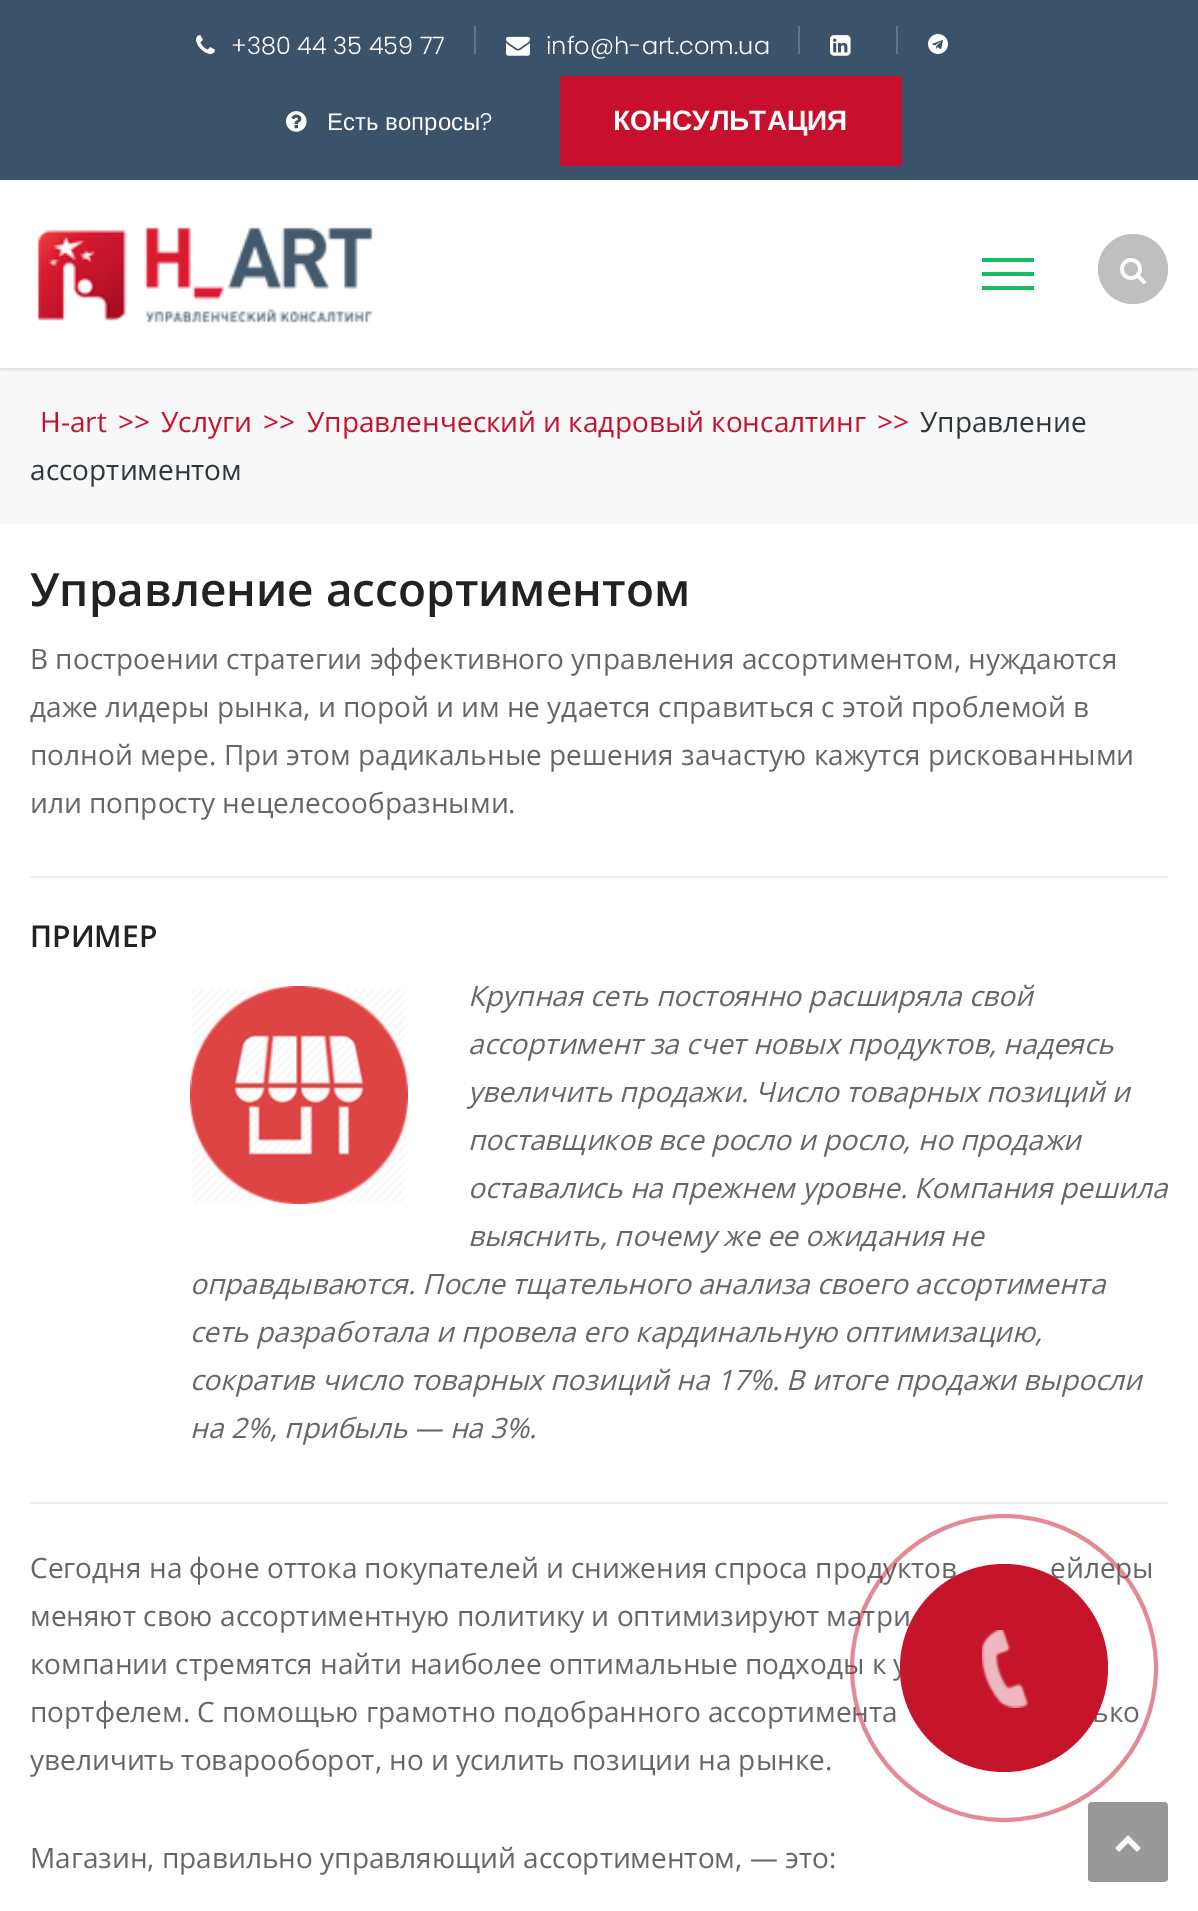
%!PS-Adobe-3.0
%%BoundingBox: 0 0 1198 1911
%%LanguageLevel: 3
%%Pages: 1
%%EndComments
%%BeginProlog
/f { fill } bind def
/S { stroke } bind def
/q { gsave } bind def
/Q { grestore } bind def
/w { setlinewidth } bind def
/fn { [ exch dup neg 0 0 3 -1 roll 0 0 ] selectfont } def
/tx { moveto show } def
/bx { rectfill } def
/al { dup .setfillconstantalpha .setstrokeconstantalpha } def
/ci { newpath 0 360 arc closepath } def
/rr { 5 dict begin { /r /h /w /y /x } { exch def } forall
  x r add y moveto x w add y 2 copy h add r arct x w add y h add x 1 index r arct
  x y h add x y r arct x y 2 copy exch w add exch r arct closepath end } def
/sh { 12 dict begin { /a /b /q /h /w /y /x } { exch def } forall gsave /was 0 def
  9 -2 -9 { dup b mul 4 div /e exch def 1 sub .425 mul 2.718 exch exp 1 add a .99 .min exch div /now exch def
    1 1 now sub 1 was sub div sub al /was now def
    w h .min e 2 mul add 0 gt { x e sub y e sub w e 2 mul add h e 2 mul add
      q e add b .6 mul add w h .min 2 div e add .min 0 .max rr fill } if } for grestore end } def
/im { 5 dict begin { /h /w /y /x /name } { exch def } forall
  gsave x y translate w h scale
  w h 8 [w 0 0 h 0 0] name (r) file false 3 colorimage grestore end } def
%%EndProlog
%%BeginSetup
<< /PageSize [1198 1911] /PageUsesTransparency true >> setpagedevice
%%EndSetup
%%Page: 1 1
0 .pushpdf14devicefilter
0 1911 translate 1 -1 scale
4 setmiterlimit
1 setgray
0 0 1198 1911 bx
0.227 0.322 0.416 setrgbcolor
0 0 1198 180 bx
(image0.raw) 196 35 19 19 im
/Poppins-Light 24 fn
1 setgray
(+380 44 35 459 77) 231 54 tx
0.38 0.459 0.533 setrgbcolor
474 26 2 28 bx
(image1.raw) 506 36 24 20 im
1 setgray
(info@h-art.com.ua) 546 54 tx
0.38 0.459 0.533 setrgbcolor
798 26 2 28 bx
(image2.raw) 830 35 21 21 im
896 26 2 28 bx
(image3.raw) 928 34 20 20 im
(image4.raw) 286 111 21 21 im
/LiberationSans-Regular 24 fn
1 setgray
(Есть вопросы) 327 130 tx
/Poppins-Light 24 fn
(?) 480 130 tx
0.784 0.063 0.18 setrgbcolor
560 76 342 90 bx
/LiberationSans-Bold 28 fn
1 setgray
(КОНСУЛЬТАЦИЯ) 613 130 tx
0.973 setgray
0 368 1198 156 bx
q
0 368 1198 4 rectclip
0 setgray
0 182 1198 188 0 2 0.1 sh
Q
(image5.raw) 37 227 336 96 im
0.094 0.729 0.376 setrgbcolor
982 258 52 4 bx
982 272 52 4 bx
982 286 52 4 bx
0.749 setgray
1133 269 35 ci f
(image6.raw) 1120 258 26 26 im
/OpenSans-Regular 28 fn
0.784 0.063 0.18 setrgbcolor
(H-art) 40 432 tx
(>>) 118 432 tx
(Услуги) 161 432 tx
(>>) 263 432 tx
(Управленческий и кадровый консалтинг) 307 432 tx
(>>) 877 432 tx
0.18 0.212 0.227 setrgbcolor
(Управление) 920 432 tx
(ассортиментом) 30 480 tx
/OpenSans-SemiBold 46 fn
0.133 setgray
(Управление ассортиментом) 30 606 tx
/OpenSans-Regular 28 fn
0.4 setgray
(В построении стратегии эффективного управления ассортиментом, нуждаются) 30 669 tx
(даже лидеры рынка, и порой и им не удается справиться с этой проблемой в) 30 717 tx
(полной мере. При этом радикальные решения зачастую кажутся рискованными) 30 765 tx
(или попросту нецелесообразными.) 30 813 tx
0.933 setgray
30 876 1138 2 bx
/OpenSans-SemiBold 30 fn
0.133 setgray
(ПРИМЕР) 30 947 tx
(image7.raw) 190 986 218 218 im
/OpenSans-Italic 28 fn
0.4 setgray
(Крупная сеть постоянно расширяла свой) 468 1006 tx
(ассортимент за счет новых продуктов, надеясь) 468 1054 tx
(увеличить продажи. Число товарных позиций и) 468 1102 tx
(поставщиков все росло и росло, но продажи) 468 1150 tx
(оставались на прежнем уровне. Компания решила) 468 1198 tx
(выяснить, почему же ее ожидания не) 468 1246 tx
(оправдываются. После тщательного анализа своего ассортимента) 190 1294 tx
(сеть разработала и провела его кардинальную оптимизацию,) 190 1342 tx
(сократив число товарных позиций на 17%. В итоге продажи выросли) 190 1390 tx
(на 2%, прибыль — на 3%.) 190 1438 tx
0.933 setgray
30 1502 1138 2 bx
/OpenSans-Regular 28 fn
0.4 setgray
(Сегодня на фоне оттока покупателей и снижения спроса продуктов) 30 1578 tx
(ейлеры) 1050 1578 tx
(меняют свою ассортиментную политику и оптимизируют матри) 30 1626 tx
(компании стремятся найти наиболее оптимальные подходы к у) 30 1674 tx
(портфелем. С помощью грамотно подобранного ассортимента) 30 1722 tx
(ько) 1092 1722 tx
(увеличить товарооборот, но и усилить позиции на рынке.) 30 1770 tx
(Магазин, правильно управляющий ассортиментом, — это:) 30 1868 tx
0.5 al
0.776 0.082 0.169 setrgbcolor
4 w
1004 1668 152 ci S
1 al
0.6 setgray
1088 1802 80 80 4 rr f
(image8.raw) 1115 1835 26 17 im
0.776 0.082 0.169 setrgbcolor
1004 1668 104 ci f
(image9.raw) 982 1630 46 78 im
.poppdf14devicefilter showpage
%%EOF
